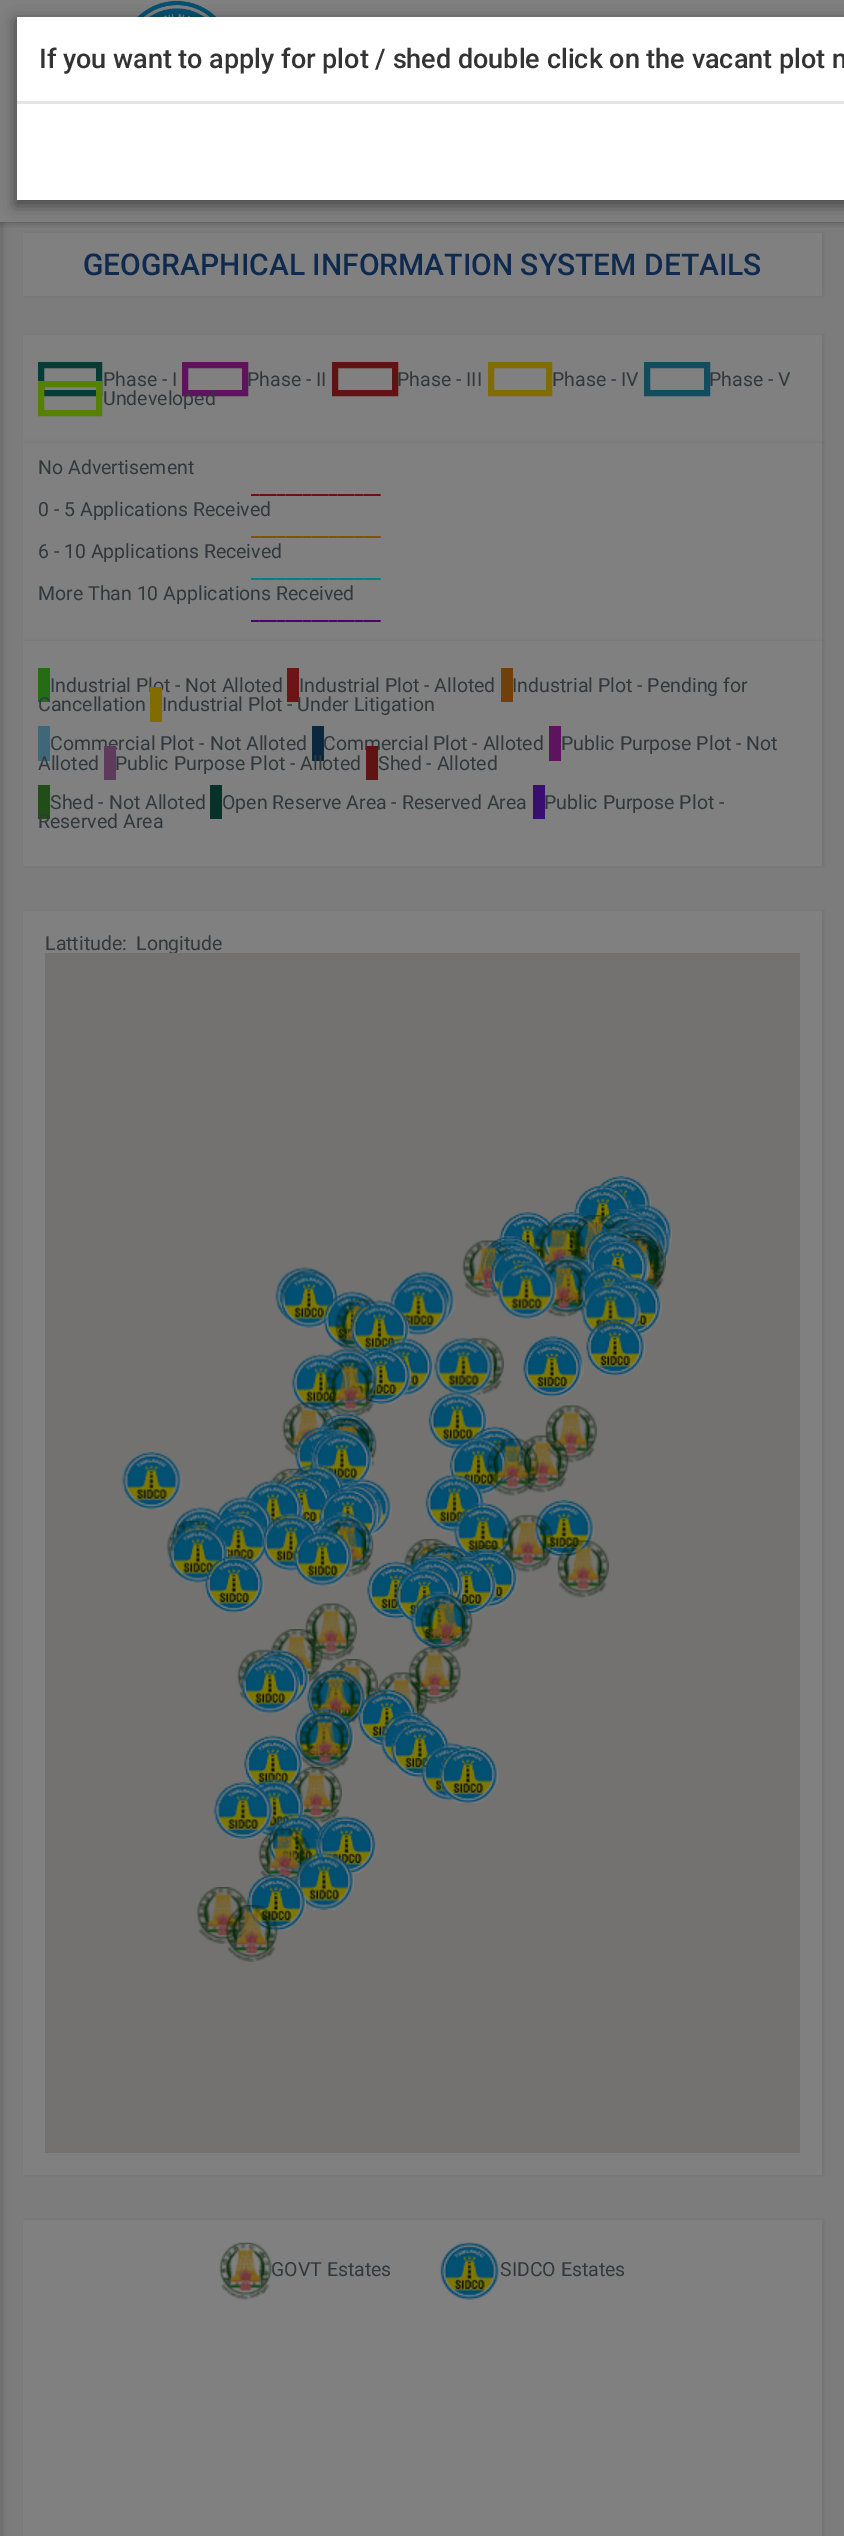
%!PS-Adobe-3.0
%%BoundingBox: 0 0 844 2536
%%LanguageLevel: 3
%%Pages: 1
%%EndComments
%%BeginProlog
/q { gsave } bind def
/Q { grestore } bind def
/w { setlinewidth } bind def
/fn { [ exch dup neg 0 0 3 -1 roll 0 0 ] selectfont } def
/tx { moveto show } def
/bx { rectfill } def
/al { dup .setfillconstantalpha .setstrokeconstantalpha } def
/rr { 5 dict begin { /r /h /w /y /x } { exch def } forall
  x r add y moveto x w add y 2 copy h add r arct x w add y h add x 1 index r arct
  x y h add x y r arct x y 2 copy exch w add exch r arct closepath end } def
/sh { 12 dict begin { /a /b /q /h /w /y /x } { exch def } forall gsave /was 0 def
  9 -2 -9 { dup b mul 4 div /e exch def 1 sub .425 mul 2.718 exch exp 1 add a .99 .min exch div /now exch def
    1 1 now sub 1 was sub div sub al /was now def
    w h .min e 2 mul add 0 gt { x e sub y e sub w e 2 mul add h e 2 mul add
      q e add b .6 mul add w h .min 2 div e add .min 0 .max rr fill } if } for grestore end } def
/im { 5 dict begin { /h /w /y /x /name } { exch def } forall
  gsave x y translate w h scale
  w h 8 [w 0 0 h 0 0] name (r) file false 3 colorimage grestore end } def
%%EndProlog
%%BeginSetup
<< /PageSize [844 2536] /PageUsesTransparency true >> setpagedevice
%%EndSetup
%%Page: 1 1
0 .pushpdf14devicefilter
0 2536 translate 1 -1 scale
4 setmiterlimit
0.486 setgray
0 0 844 2536 bx
0 setgray
-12 8 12 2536 0 4 0.35 sh
0.435 setgray
0 222 1 2314 bx
0.502 setgray
0 0 844 222 bx
0 setgray
24 233 800 63 0 2 0.1 sh
0.502 setgray
23 233 799 63 bx
q
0 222 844 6 rectclip
0 setgray
0 0 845 222 0 4 0.35 sh
Q
(image0.raw) 137 0 80 17 im
0 setgray
15 20 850 186 0 7 0.43 sh
1 setgray
17 17 827 183 bx
0.898 setgray
17 101 827 3 bx
/Roboto-Medium 27 fn
0.2 setgray
(If you want to apply for plot / shed double click on the vacant plot n) 39 68 tx
/Roboto-Medium 30 fn
0.059 0.165 0.306 setrgbcolor
(GEOGRAPHICAL INFORMATION SYSTEM DETAILS) 83 275 tx
0 setgray
24 335 800 108 0 2 0.1 sh
0.502 setgray
23 335 799 108 bx
0.02 0.239 0.208 setrgbcolor
6 w
41 365 58 28 rectstroke
/Roboto-Regular 19.5 fn
0.192 0.22 0.235 setrgbcolor
(Phase - I) 103 386 tx
0.369 0.075 0.373 setrgbcolor
185 365 60 28 rectstroke
0.192 0.22 0.235 setrgbcolor
(Phase - II) 247 386 tx
0.373 0.075 0.075 setrgbcolor
335 365 60 28 rectstroke
0.192 0.22 0.235 setrgbcolor
(Phase - III) 397 386 tx
0.502 0.424 0 setrgbcolor
491 365 58 28 rectstroke
0.192 0.22 0.235 setrgbcolor
(Phase - IV) 552 386 tx
0.075 0.294 0.373 setrgbcolor
647 365 60 28 rectstroke
0.192 0.22 0.235 setrgbcolor
(Phase - V) 709 386 tx
0.333 0.502 0 setrgbcolor
41 384 58 29 rectstroke
0.192 0.22 0.235 setrgbcolor
(Undeveloped) 103 405 tx
0 setgray
24 443 800 198 0 2 0.1 sh
0.502 setgray
23 443 799 198 bx
0.192 0.22 0.235 setrgbcolor
(No Advertisement) 38 474 tx
/Roboto-Bold 19.5 fn
0.435 0.067 0.067 setrgbcolor
(_______________) 251 494 tx
/Roboto-Regular 19.5 fn
0.192 0.22 0.235 setrgbcolor
(0 - 5 Applications Received) 38 516 tx
/Roboto-Bold 19.5 fn
0.502 0.333 0 setrgbcolor
(_______________) 251 536 tx
/Roboto-Regular 19.5 fn
0.192 0.22 0.235 setrgbcolor
(6 - 10 Applications Received) 38 558 tx
/Roboto-Bold 19.5 fn
0 0.502 0.502 setrgbcolor
(_______________) 251 578 tx
/Roboto-Regular 19.5 fn
0.192 0.22 0.235 setrgbcolor
(More Than 10 Applications Received) 38 600 tx
/Roboto-Bold 19.5 fn
0.302 0 0.435 setrgbcolor
(_______________) 251 620 tx
0 setgray
24 641 800 225 0 2 0.1 sh
0.502 setgray
23 641 799 225 bx
0.141 0.427 0.082 setrgbcolor
38 668 12 34 bx
/Roboto-Regular 19.5 fn
0.192 0.22 0.235 setrgbcolor
(Industrial Plot - Not Alloted) 50 692 tx
0.427 0.082 0.086 setrgbcolor
287 668 12 34 bx
0.192 0.22 0.235 setrgbcolor
(Industrial Plot - Alloted) 299 692 tx
0.443 0.251 0.031 setrgbcolor
501 668 12 34 bx
0.192 0.22 0.235 setrgbcolor
(Industrial Plot - Pending for) 512 692 tx
(Cancellation) 38 711 tx
0.502 0.424 0 setrgbcolor
150 687 12 35 bx
0.192 0.22 0.235 setrgbcolor
(Industrial Plot - Under Litigation) 162 711 tx
0.247 0.404 0.471 setrgbcolor
38 726 12 35 bx
0.192 0.22 0.235 setrgbcolor
(Commercial Plot - Not Alloted) 50 750 tx
0.043 0.153 0.239 setrgbcolor
312 726 12 35 bx
0.192 0.22 0.235 setrgbcolor
(Commercial Plot - Alloted) 323 750 tx
0.369 0.075 0.373 setrgbcolor
549 726 12 35 bx
0.192 0.22 0.235 setrgbcolor
(Public Purpose Plot - Not) 561 750 tx
(Alloted) 38 770 tx
0.369 0.231 0.353 setrgbcolor
104 746 12 34 bx
0.192 0.22 0.235 setrgbcolor
(Public Purpose Plot - Alloted) 115 770 tx
0.373 0.075 0.075 setrgbcolor
366 746 12 34 bx
0.192 0.22 0.235 setrgbcolor
(Shed - Alloted) 378 770 tx
0.129 0.302 0.094 setrgbcolor
38 785 12 34 bx
0.192 0.22 0.235 setrgbcolor
(Shed - Not Alloted) 50 809 tx
0.024 0.196 0.157 setrgbcolor
210 785 12 34 bx
0.192 0.22 0.235 setrgbcolor
(Open Reserve Area - Reserved Area) 222 809 tx
0.227 0.051 0.439 setrgbcolor
533 785 12 34 bx
0.192 0.22 0.235 setrgbcolor
(Public Purpose Plot -) 544 809 tx
(Reserved Area) 38 828 tx
0 setgray
24 911 800 1264 0 2 0.1 sh
0.502 setgray
23 911 799 1264 bx
0.192 0.22 0.235 setrgbcolor
(Lattitude:) 45 950 tx
(Longitude) 136 950 tx
0.451 0.447 0.439 setrgbcolor
45 953 755 1200 bx
(image1.raw) 592 1176 59 41 im
(image2.raw) 574 1185 59 57 im
(image3.raw) 614 1204 58 45 im
(image4.raw) 499 1212 55 54 im
(image6.raw) 596 1209 53 34 im
(image5.raw) 541 1212 61 57 im
(image7.raw) 568 1215 53 57 im
(image8.raw) 611 1215 60 55 im
(image9.raw) 601 1219 53 24 im
(image10.raw) 532 1222 54 53 im
(image11.raw) 605 1219 59 44 im
(image13.raw) 610 1225 50 56 im
(image12.raw) 608 1225 57 58 im
(image14.raw) 583 1228 61 46 im
(image15.raw) 481 1236 59 57 im
(image16.raw) 608 1231 52 55 im
(image17.raw) 618 1236 48 55 im
(image20.raw) 589 1237 61 48 im
(image18.raw) 588 1237 60 48 im
(image19.raw) 481 1239 59 57 im
(image26.raw) 616 1239 49 53 im
(image22.raw) 589 1239 61 46 im
(image21.raw) 588 1239 60 46 im
(image23.raw) 462 1240 52 58 im
(image24.raw) 489 1246 60 54 im
(image25.raw) 541 1255 58 58 im
(image27.raw) 275 1267 60 58 im
(image29.raw) 541 1259 49 59 im
(image28.raw) 496 1261 61 58 im
(image30.raw) 579 1264 59 51 im
(image31.raw) 282 1270 52 58 im
(image32.raw) 280 1271 59 57 im
(image33.raw) 395 1271 60 59 im
(image34.raw) 395 1271 60 59 im
(image35.raw) 603 1276 59 58 im
(image36.raw) 389 1277 60 59 im
(image37.raw) 605 1278 57 57 im
(image38.raw) 323 1291 59 58 im
(image39.raw) 581 1282 60 55 im
(image40.raw) 334 1298 49 59 im
(image41.raw) 350 1300 60 58 im
(image42.raw) 524 1336 60 58 im
(image43.raw) 586 1318 59 58 im
(image44.raw) 376 1337 58 59 im
(image49.raw) 455 1337 49 59 im
(image45.raw) 434 1337 60 59 im
(image46.raw) 524 1336 60 58 im
(image48.raw) 359 1347 52 57 im
(image47.raw) 321 1348 58 58 im
(image50.raw) 523 1339 59 58 im
(image51.raw) 292 1354 59 58 im
(image53.raw) 324 1360 53 58 im
(image52.raw) 282 1402 53 57 im
(image54.raw) 428 1391 60 59 im
(image55.raw) 545 1405 52 58 im
(image56.raw) 316 1413 59 46 im
(image57.raw) 325 1418 52 53 im
(image58.raw) 320 1419 53 37 im
(image59.raw) 294 1426 52 52 im
(image60.raw) 465 1426 60 58 im
(image61.raw) 309 1429 60 58 im
(image62.raw) 122 1452 60 57 im
(image63.raw) 312 1430 60 59 im
(image64.raw) 449 1436 60 59 im
(image66.raw) 516 1435 53 58 im
(image65.raw) 486 1438 53 58 im
(image67.raw) 286 1463 59 59 im
(image68.raw) 267 1468 53 24 im
(image69.raw) 274 1474 58 58 im
(image70.raw) 332 1479 60 57 im
(image71.raw) 425 1474 60 58 im
(image72.raw) 244 1480 59 53 im
(image73.raw) 322 1483 61 54 im
(image75.raw) 215 1496 58 50 im
(image74.raw) 172 1507 58 42 im
(image76.raw) 318 1488 60 50 im
(image77.raw) 453 1503 60 57 im
(image78.raw) 534 1500 60 57 im
(image79.raw) 210 1512 59 57 im
(image81.raw) 314 1511 58 59 im
(image80.raw) 261 1513 60 58 im
(image82.raw) 501 1514 53 59 im
(image83.raw) 166 1521 54 56 im
(image84.raw) 322 1519 52 58 im
(image85.raw) 168 1525 60 58 im
(image86.raw) 293 1528 60 58 im
(image87.raw) 403 1539 51 34 im
(image88.raw) 557 1540 52 58 im
(image89.raw) 413 1543 49 27 im
(image92.raw) 464 1545 50 23 im
(image90.raw) 418 1544 58 25 im
(image91.raw) 418 1545 58 26 im
(image93.raw) 418 1546 51 24 im
(image94.raw) 455 1549 57 58 im
(image95.raw) 205 1555 59 58 im
(image96.raw) 407 1553 53 20 im
(image97.raw) 460 1549 58 58 im
(image101.raw) 446 1557 51 57 im
(image98.raw) 409 1557 55 48 im
(image100.raw) 409 1557 55 48 im
(image99.raw) 367 1561 57 58 im
(image102.raw) 394 1567 61 58 im
(image103.raw) 410 1591 60 58 im
(image55.raw) 305 1603 52 58 im
(image104.raw) 270 1629 53 55 im
(image105.raw) 420 1595 53 59 im
(image106.raw) 237 1649 46 58 im
(image107.raw) 408 1647 53 57 im
(image108.raw) 250 1650 59 57 im
(image109.raw) 240 1655 60 59 im
(image110.raw) 326 1659 52 56 im
(image111.raw) 307 1669 59 58 im
(image112.raw) 309 1670 53 56 im
(image113.raw) 375 1672 53 49 im
(image114.raw) 295 1708 59 58 im
(image115.raw) 357 1689 60 57 im
(image116.raw) 298 1714 54 58 im
(image117.raw) 379 1711 61 58 im
(image118.raw) 244 1735 59 58 im
(image119.raw) 390 1720 60 58 im
(image120.raw) 420 1742 52 59 im
(image123.raw) 290 1767 52 57 im
(image122.raw) 252 1778 53 59 im
(image121.raw) 213 1782 61 57 im
(image124.raw) 438 1746 60 57 im
(image125.raw) 268 1813 58 58 im
(image126.raw) 313 1816 61 58 im
(image127.raw) 258 1828 53 57 im
(image128.raw) 317 1816 60 58 im
(image131.raw) 294 1852 60 58 im
(image130.raw) 247 1873 59 58 im
(image129.raw) 196 1887 54 57 im
(image132.raw) 225 1905 53 57 im
0 setgray
24 2220 800 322 0 2 0.1 sh
0.502 setgray
23 2220 799 316 bx
(image133.raw) 219 2242 53 58 im
0.192 0.22 0.235 setrgbcolor
(GOVT Estates) 271 2276 tx
(image134.raw) 439 2242 61 58 im
(SIDCO Estates) 500 2276 tx
.poppdf14devicefilter showpage
%%EOF
